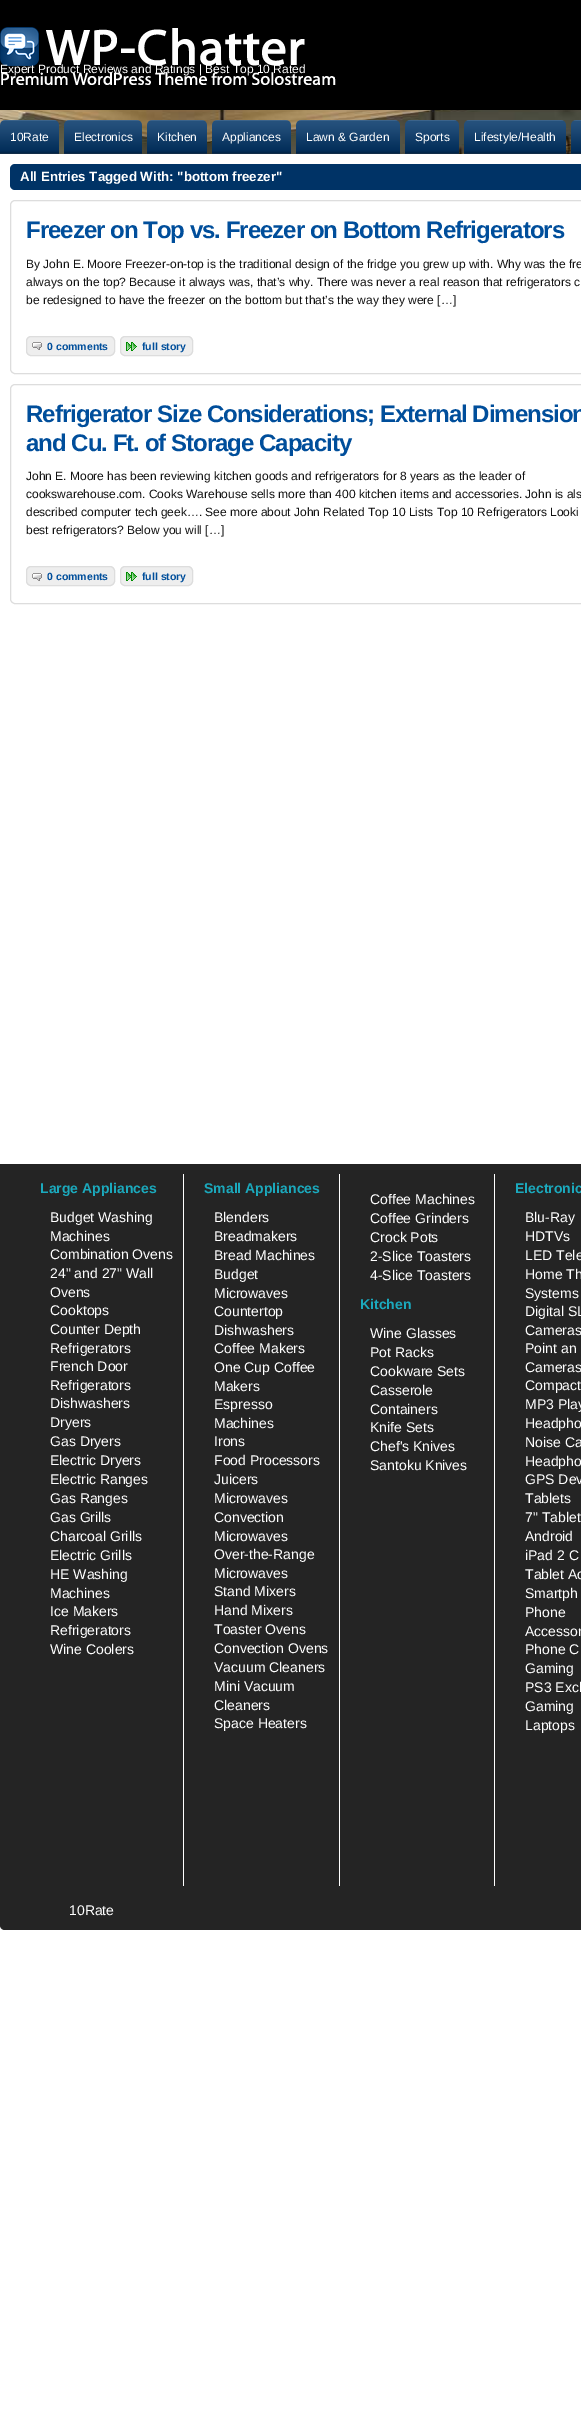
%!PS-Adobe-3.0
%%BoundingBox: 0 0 581 2421
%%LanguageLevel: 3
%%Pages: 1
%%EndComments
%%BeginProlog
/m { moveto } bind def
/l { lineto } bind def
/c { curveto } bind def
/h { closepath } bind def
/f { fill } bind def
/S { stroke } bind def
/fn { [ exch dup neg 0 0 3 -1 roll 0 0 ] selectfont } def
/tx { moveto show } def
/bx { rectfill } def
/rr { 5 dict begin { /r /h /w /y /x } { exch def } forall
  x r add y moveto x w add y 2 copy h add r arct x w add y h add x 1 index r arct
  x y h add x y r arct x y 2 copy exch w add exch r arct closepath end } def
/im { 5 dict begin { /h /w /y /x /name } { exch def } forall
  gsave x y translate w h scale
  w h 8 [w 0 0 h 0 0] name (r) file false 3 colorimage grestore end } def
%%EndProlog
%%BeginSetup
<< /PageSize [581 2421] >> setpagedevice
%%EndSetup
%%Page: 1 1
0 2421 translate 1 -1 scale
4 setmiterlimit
1 setgray
0 0 581 2421 bx
(image0.raw) 0 110 581 44 im
(image1.raw) 0 0 581 110 im
/LiberationSans-Regular 12 fn
(Expert Product Reviews and Ratings | Best Top 10 Rated) 0 73 tx
(image2.raw) 0 120 59 34 im
(10Rate) 10 141 tx
(image3.raw) 64 120 78 34 im
(Electronics) 74 141 tx
(image4.raw) 147 120 60 34 im
(Kitchen) 157 141 tx
(image5.raw) 212 120 79 34 im
(Appliances) 222 141 tx
(image6.raw) 296 120 104 34 im
(Lawn & Garden) 306 141 tx
(image7.raw) 405 120 54 34 im
(Sports) 415 141 tx
(image8.raw) 464 120 102 34 im
(Lifestyle/Health) 474 141 tx
(image9.raw) 571 120 10 34 im
0 0.2 0.4 setrgbcolor
10 164 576 26 5 rr f
/LiberationSans-Bold 13.3 fn
1 setgray
(All Entries Tagged With: "bottom freezer") 20 181 tx
0.867 setgray
10.5 200.5 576 173 4.5 rr S
/LiberationSans-Bold 24 fn
0 0.306 0.608 setrgbcolor
26 238 m -1 0 (Freezer on Top vs. Freezer on Bottom Refrigerators) ashow
/LiberationSans-Regular 12 fn
0.067 setgray
(By John E. Moore Freezer-on-top is the traditional design of the fridge you grew up with. Why was the fre) 26 268 tx
(always on the top? Because it always was, that’s why. There was never a real reason that refrigerators c) 26 286 tx
(be redesigned to have the freezer on the bottom but that’s the way they were […]) 26 304 tx
0.933 setgray
26 336 89 20 5 rr f
(image10.raw) 32 342 10 8 im
0.867 setgray
26.5 336.5 88 19 4.5 rr S
/LiberationSans-Bold 10.5 fn
0 0.306 0.608 setrgbcolor
(0 comments) 47 350 tx
0.933 setgray
120 336 73 20 5 rr f
(image11.raw) 126 342 11 9 im
0.867 setgray
120.5 336.5 72 19 4.5 rr S
0 0.306 0.608 setrgbcolor
(full story) 142 350 tx
0.867 setgray
10.5 384.5 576 219 4.5 rr S
/LiberationSans-Bold 24 fn
0 0.306 0.608 setrgbcolor
26 422 m -1 0 (Refrigerator Size Considerations; External Dimension) ashow
26 451 m -1 0 (and Cu. Ft. of Storage Capacity) ashow
/LiberationSans-Regular 12 fn
0.067 setgray
(John E. Moore has been reviewing kitchen goods and refrigerators for 8 years as the leader of) 26 480 tx
(cookswarehouse.com. Cooks Warehouse sells more than 400 kitchen items and accessories. John is als) 26 498 tx
(described computer tech geek…. See more about John Related Top 10 Lists Top 10 Refrigerators Looki) 26 516 tx
(best refrigerators? Below you will […]) 26 534 tx
0.933 setgray
26 566 89 20 5 rr f
(image10.raw) 32 573 10 8 im
0.867 setgray
26.5 566.5 88 19 4.5 rr S
/LiberationSans-Bold 10.5 fn
0 0.306 0.608 setrgbcolor
(0 comments) 47 580 tx
0.933 setgray
120 566 73 20 5 rr f
(image11.raw) 126 572 11 9 im
0.867 setgray
120.5 566.5 72 19 4.5 rr S
0 0.306 0.608 setrgbcolor
(full story) 142 580 tx
0.141 setgray
0 1164 m 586 1164 l 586 1925 l 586 1928 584 1930 581 1930 c 5 1930 l 2 1930 0 1928 0 1925 c h f
1 setgray
183 1174 1 712 bx
/LiberationSans-Bold 14 fn
0.106 0.663 0.741 setrgbcolor
(Large Appliances) 40 1193 tx
/LiberationSans-Regular 14 fn
1 setgray
(Budget Washing) 50 1222 tx
(Machines) 50 1241 tx
(Combination Ovens) 50 1259 tx
(24" and 27" Wall) 50 1278 tx
(Ovens) 50 1297 tx
(Cooktops) 50 1315 tx
(Counter Depth) 50 1334 tx
(Refrigerators) 50 1353 tx
(French Door) 50 1371 tx
(Refrigerators) 50 1390 tx
(Dishwashers) 50 1408 tx
(Dryers) 50 1427 tx
(Gas Dryers) 50 1446 tx
(Electric Dryers) 50 1465 tx
(Electric Ranges) 50 1484 tx
(Gas Ranges) 50 1503 tx
(Gas Grills) 50 1522 tx
(Charcoal Grills) 50 1541 tx
(Electric Grills) 50 1560 tx
(HE Washing) 50 1579 tx
(Machines) 50 1598 tx
(Ice Makers) 50 1616 tx
(Refrigerators) 50 1635 tx
(Wine Coolers) 50 1654 tx
339 1174 1 712 bx
/LiberationSans-Bold 14 fn
0.106 0.663 0.741 setrgbcolor
(Small Appliances) 204 1193 tx
/LiberationSans-Regular 14 fn
1 setgray
(Blenders) 214 1222 tx
(Breadmakers) 214 1241 tx
(Bread Machines) 214 1260 tx
(Budget) 214 1279 tx
(Microwaves) 214 1298 tx
(Countertop) 214 1316 tx
(Dishwashers) 214 1335 tx
(Coffee Makers) 214 1353 tx
(One Cup Coffee) 214 1372 tx
(Makers) 214 1391 tx
(Espresso) 214 1409 tx
(Machines) 214 1428 tx
(Irons) 214 1446 tx
(Food Processors) 214 1465 tx
(Juicers) 214 1484 tx
(Microwaves) 214 1503 tx
(Convection) 214 1522 tx
(Microwaves) 214 1541 tx
(Over-the-Range) 214 1559 tx
(Microwaves) 214 1578 tx
(Stand Mixers) 214 1596 tx
(Hand Mixers) 214 1615 tx
(Toaster Ovens) 214 1634 tx
(Convection Ovens) 214 1653 tx
(Vacuum Cleaners) 214 1672 tx
(Mini Vacuum) 214 1691 tx
(Cleaners) 214 1710 tx
(Space Heaters) 214 1728 tx
494 1174 1 712 bx
(Coffee Machines) 370 1204 tx
(Coffee Grinders) 370 1223 tx
(Crock Pots) 370 1242 tx
(2-Slice Toasters) 370 1261 tx
(4-Slice Toasters) 370 1280 tx
/LiberationSans-Bold 14 fn
0.106 0.663 0.741 setrgbcolor
(Kitchen) 360 1309 tx
/LiberationSans-Regular 14 fn
1 setgray
(Wine Glasses) 370 1338 tx
(Pot Racks) 370 1357 tx
(Cookware Sets) 370 1376 tx
(Casserole) 370 1395 tx
(Containers) 370 1414 tx
(Knife Sets) 370 1432 tx
(Chef's Knives) 370 1451 tx
(Santoku Knives) 370 1470 tx
/LiberationSans-Bold 14 fn
0.106 0.663 0.741 setrgbcolor
(Electronic) 515 1193 tx
/LiberationSans-Regular 14 fn
1 setgray
(Blu-Ray) 525 1222 tx
(HDTVs) 525 1241 tx
(LED Tele) 525 1260 tx
(Home Th) 525 1279 tx
(Systems) 525 1298 tx
(Digital SL) 525 1316 tx
(Cameras) 525 1335 tx
(Point an) 525 1353 tx
(Cameras) 525 1372 tx
(Compact) 525 1390 tx
(MP3 Play) 525 1409 tx
(Headpho) 525 1428 tx
(Noise Ca) 525 1447 tx
(Headpho) 525 1466 tx
(GPS Dev) 525 1484 tx
(Tablets) 525 1503 tx
(7" Tablet) 525 1522 tx
(Android) 525 1541 tx
(iPad 2 C) 525 1560 tx
(Tablet Ac) 525 1579 tx
(Smartph) 525 1598 tx
(Phone) 525 1617 tx
(Accessor) 525 1636 tx
(Phone C) 525 1654 tx
(Gaming) 525 1673 tx
(PS3 Excl) 525 1692 tx
(Gaming) 525 1711 tx
(Laptops) 525 1730 tx
(10Rate) 69 1915 tx
showpage
%%EOF
